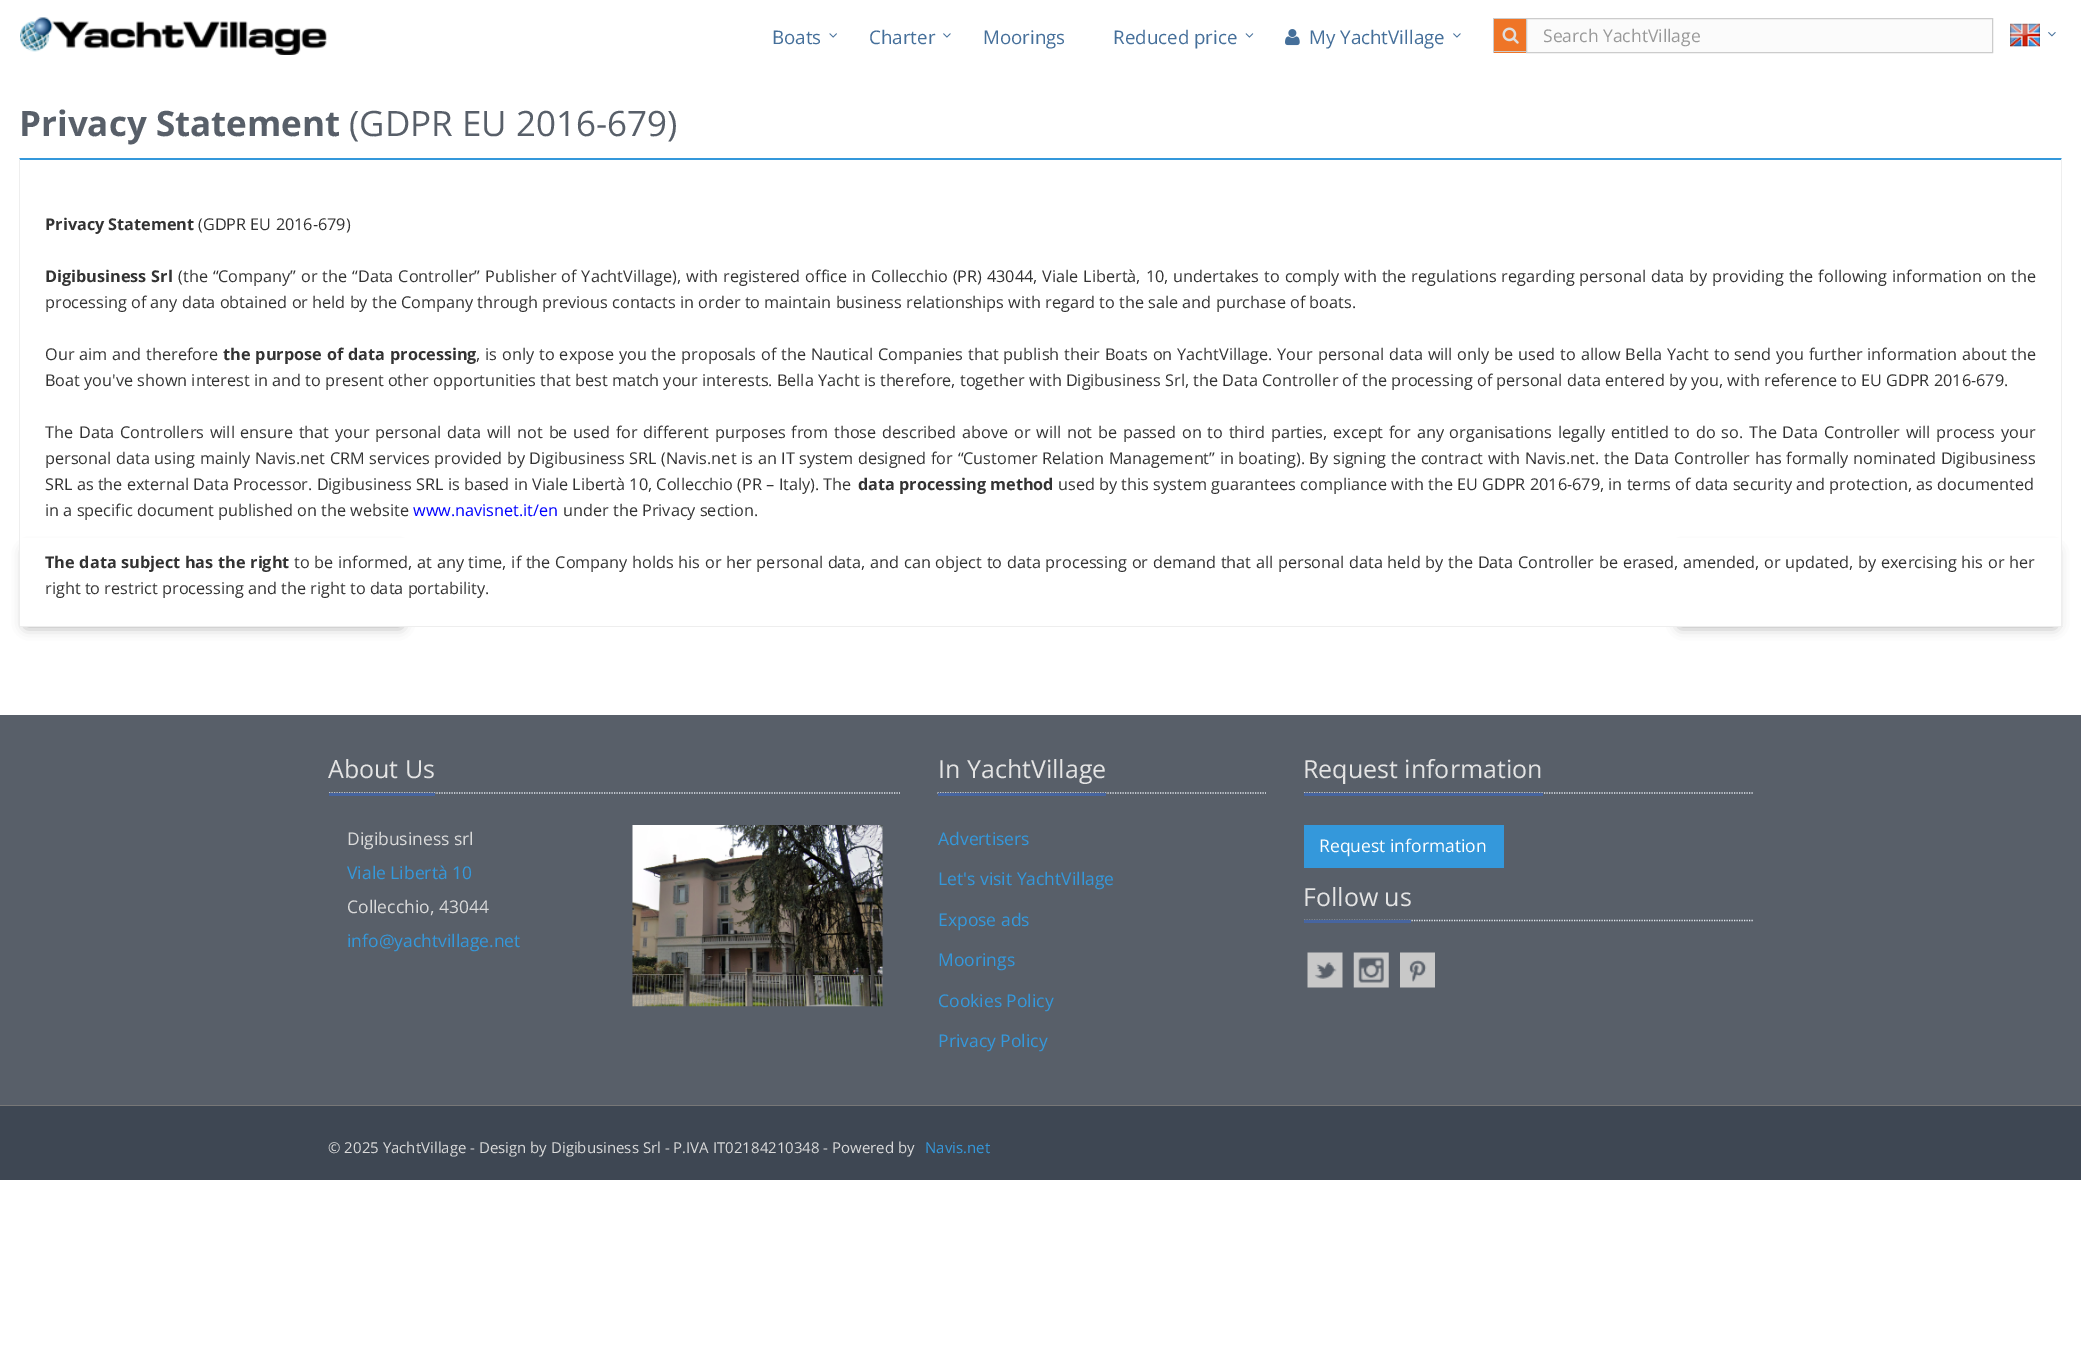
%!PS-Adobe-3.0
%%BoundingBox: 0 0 2081 1369
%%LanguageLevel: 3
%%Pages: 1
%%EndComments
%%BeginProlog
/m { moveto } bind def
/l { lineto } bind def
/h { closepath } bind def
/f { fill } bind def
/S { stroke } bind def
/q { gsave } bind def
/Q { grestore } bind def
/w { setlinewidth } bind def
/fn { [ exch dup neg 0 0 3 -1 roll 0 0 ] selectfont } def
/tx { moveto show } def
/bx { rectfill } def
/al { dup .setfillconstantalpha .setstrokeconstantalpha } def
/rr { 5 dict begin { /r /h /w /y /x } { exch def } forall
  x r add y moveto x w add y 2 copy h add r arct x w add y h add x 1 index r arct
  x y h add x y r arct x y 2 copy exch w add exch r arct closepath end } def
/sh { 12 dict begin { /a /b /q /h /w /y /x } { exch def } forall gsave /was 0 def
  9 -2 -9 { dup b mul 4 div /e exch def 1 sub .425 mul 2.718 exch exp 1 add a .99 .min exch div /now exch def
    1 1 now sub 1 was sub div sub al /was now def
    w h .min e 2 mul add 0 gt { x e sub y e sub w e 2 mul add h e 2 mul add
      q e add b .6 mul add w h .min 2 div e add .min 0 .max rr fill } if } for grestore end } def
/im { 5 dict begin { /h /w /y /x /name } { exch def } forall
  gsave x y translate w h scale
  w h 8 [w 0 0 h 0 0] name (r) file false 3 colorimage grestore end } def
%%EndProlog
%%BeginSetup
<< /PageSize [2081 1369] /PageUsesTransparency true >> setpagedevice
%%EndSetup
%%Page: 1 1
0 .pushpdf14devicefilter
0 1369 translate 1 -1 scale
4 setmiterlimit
1 setgray
0 0 2081 1369 bx
(image0.raw) 20 17 307 38 im
/OpenSans-Regular 18.75 fn
0.271 0.435 0.604 setrgbcolor
(Boats) 772 44 tx
(image1.raw) 829 33 8 5 im
(Charter) 869 44 tx
(image2.raw) 943 33 8 5 im
(Moorings) 983 44 tx
(Reduced price) 1113 44 tx
(image3.raw) 1245 33 9 5 im
(image4.raw) 1285 29 15 17 im
(My YachtVillage) 1309 44 tx
(image2.raw) 1453 33 8 5 im
0.937 0.459 0.153 setrgbcolor
1494 19 32 34 bx
0.8 setgray
1493 18 33 1 bx
1493 51 33 1 bx
1493 18 1 35 bx
(image5.raw) 1502 27 17 17 im
0.984 setgray
1526.5 18.5 m 1992.5 18.5 l 1992.5 52.5 l 1526.5 52.5 l h q f Q
0.8 setgray
S
/OpenSans-Regular 17.5 fn
0.6 setgray
(Search YachtVillage) 1543 42 tx
(image6.raw) 2010 23 30 24 im
(image7.raw) 2048 32 8 5 im
/OpenSans-Bold 35 fn
0.345 0.373 0.412 setrgbcolor
(Privacy Statement) 19 136 tx
/OpenSans-Regular 35 fn
(\(GDPR EU 2016-679\)) 349 136 tx
0.6 setgray
26 551 375 75 0 6.5 1 sh
1680 551 375 75 0 6.5 1 sh
1 setgray
20 538 2041 88 bx
0.204 0.596 0.859 setrgbcolor
19 158 m 2062 158 l 2061 160 l 20 160 l h f
0.933 setgray
2062 158 m 2062 628 l 2061 626 l 2061 160 l h f
19 626 2044 1 bx
19 628 m 19 158 l 20 160 l 20 626 l h f
/OpenSans-Bold 16.25 fn
0.2 setgray
(Privacy Statement) 45 230 tx
/OpenSans-Regular 16.25 fn
(\(GDPR EU 2016-679\)) 198 230 tx
/OpenSans-Bold 16.25 fn
45 282 m 0.7 0 32 (Digibusiness Srl) widthshow
/OpenSans-Regular 16.25 fn
178 282 m 0.7 0 32 (\(the “Company” or the “Data Controller” Publisher of YachtVillage\), with registered office in Collecchio \(PR\) 43044, Viale Libertà, 10, undertakes to comply with the regulations regarding personal data by providing the following information on the) widthshow
(processing of any data obtained or held by the Company through previous contacts in order to maintain business relationships with regard to the sale and purchase of boats.) 45 308 tx
45 360 m 0.75 0 32 (Our aim and therefore) widthshow
/OpenSans-Bold 16.25 fn
223 360 m 0.75 0 32 (the purpose of data processing) widthshow
/OpenSans-Regular 16.25 fn
476 360 m 0.75 0 32 (, is only to expose you the proposals of the Nautical Companies that publish their Boats on YachtVillage. Your personal data will only be used to allow Bella Yacht to send you further information about the) widthshow
(Boat you've shown interest in and to present other opportunities that best match your interests. Bella Yacht is therefore, together with Digibusiness Srl, the Data Controller of the processing of personal data entered by you, with reference to EU GDPR 2016-679.) 45 386 tx
45 438 m 1.5 0 32 (The Data Controllers will ensure that your personal data will not be used for different purposes from those described above or will not be passed on to third parties, except for any organisations legally entitled to do so. The Data Controller will process your) widthshow
45 464 m 0.45 0 32 (personal data using mainly Navis.net CRM services provided by Digibusiness SRL \(Navis.net is an IT system designed for “Customer Relation Management” in boating\). By signing the contract with Navis.net. the Data Controller has formally nominated Digibusiness) widthshow
(SRL as the external Data Processor. Digibusiness SRL is based in Viale Libertà 10, Collecchio \(PR – Italy\). The) 45 490 tx
/OpenSans-Bold 16.25 fn
(data processing method) 858 490 tx
/OpenSans-Regular 16.25 fn
(used by this system guarantees compliance with the EU GDPR 2016-679, in terms of data security and protection, as documented) 1058 490 tx
(in a specific document published on the website) 45 516 tx
0 0 1 setrgbcolor
(www.navisnet.it/en) 413 516 tx
0.2 setgray
(under the Privacy section.) 563 516 tx
/OpenSans-Bold 16.25 fn
45 568 m 0.5 0 32 (The data subject has the right) widthshow
/OpenSans-Regular 16.25 fn
294 568 m 0.5 0 32 (to be informed, at any time, if the Company holds his or her personal data, and can object to data processing or demand that all personal data held by the Data Controller be erased, amended, or updated, by exercising his or her) widthshow
(right to restrict processing and the right to data portability.) 45 594 tx
0.345 0.373 0.412 setrgbcolor
0 715 2081 390 bx
0.894 0.914 0.941 setrgbcolor
1.2 w
[1.25 1.25] 0 setdash
329 793 m 900 793 l S
0.278 0.396 0.627 setrgbcolor
329 793 106 3 bx
/OpenSans-Regular 25 fn
0.894 setgray
(About Us) 328 778 tx
/OpenSans-Regular 17.5 fn
0.855 setgray
(Digibusiness srl) 347 845 tx
0.204 0.596 0.859 setrgbcolor
(Viale Libertà 10) 347 879 tx
0.855 setgray
(Collecchio, 43044) 347 913 tx
0.204 0.596 0.859 setrgbcolor
(info@yachtvillage.net) 347 947 tx
(image8.raw) 632 825 251 182 im
0.894 0.914 0.941 setrgbcolor
937.5 793 m 1266 793 l S
0.278 0.396 0.627 setrgbcolor
938 793 168 3 bx
/OpenSans-Regular 25 fn
0.894 setgray
(In YachtVillage) 938 778 tx
/OpenSans-Regular 17.5 fn
0.204 0.596 0.859 setrgbcolor
(Advertisers) 938 845 tx
(Let's visit YachtVillage) 938 885 tx
(Expose ads) 938 926 tx
(Moorings) 938 966 tx
(Cookies Policy) 938 1007 tx
(Privacy Policy) 938 1047 tx
0.894 0.914 0.941 setrgbcolor
1304 793 m 1754 793 l S
0.278 0.396 0.627 setrgbcolor
1304 793 239 3 bx
/OpenSans-Regular 25 fn
0.894 setgray
(Request information) 1303 778 tx
0.204 0.596 0.859 setrgbcolor
1304 825 200 43 bx
/OpenSans-Regular 17.5 fn
1 setgray
(Request information) 1319 852 tx
0.894 0.914 0.941 setrgbcolor
1304 920.5 m 1754 920.5 l S
0.278 0.396 0.627 setrgbcolor
1304 920 107 3 bx
/OpenSans-Regular 25 fn
0.894 setgray
(Follow us) 1303 906 tx
(image9.raw) 1307 952 36 36 im
(image10.raw) 1353 952 36 36 im
(image11.raw) 1400 952 35 36 im
0.243 0.278 0.325 setrgbcolor
0 1106 2081 74 bx
0.467 setgray
0 1105 2081 1 bx
/OpenSans-Regular 15 fn
0.855 setgray
(© 2025 YachtVillage - Design by Digibusiness Srl - P.IVA IT02184210348 - Powered by) 328 1153 tx
0.204 0.596 0.859 setrgbcolor
(Navis.net) 925 1153 tx
.poppdf14devicefilter showpage
%%EOF
